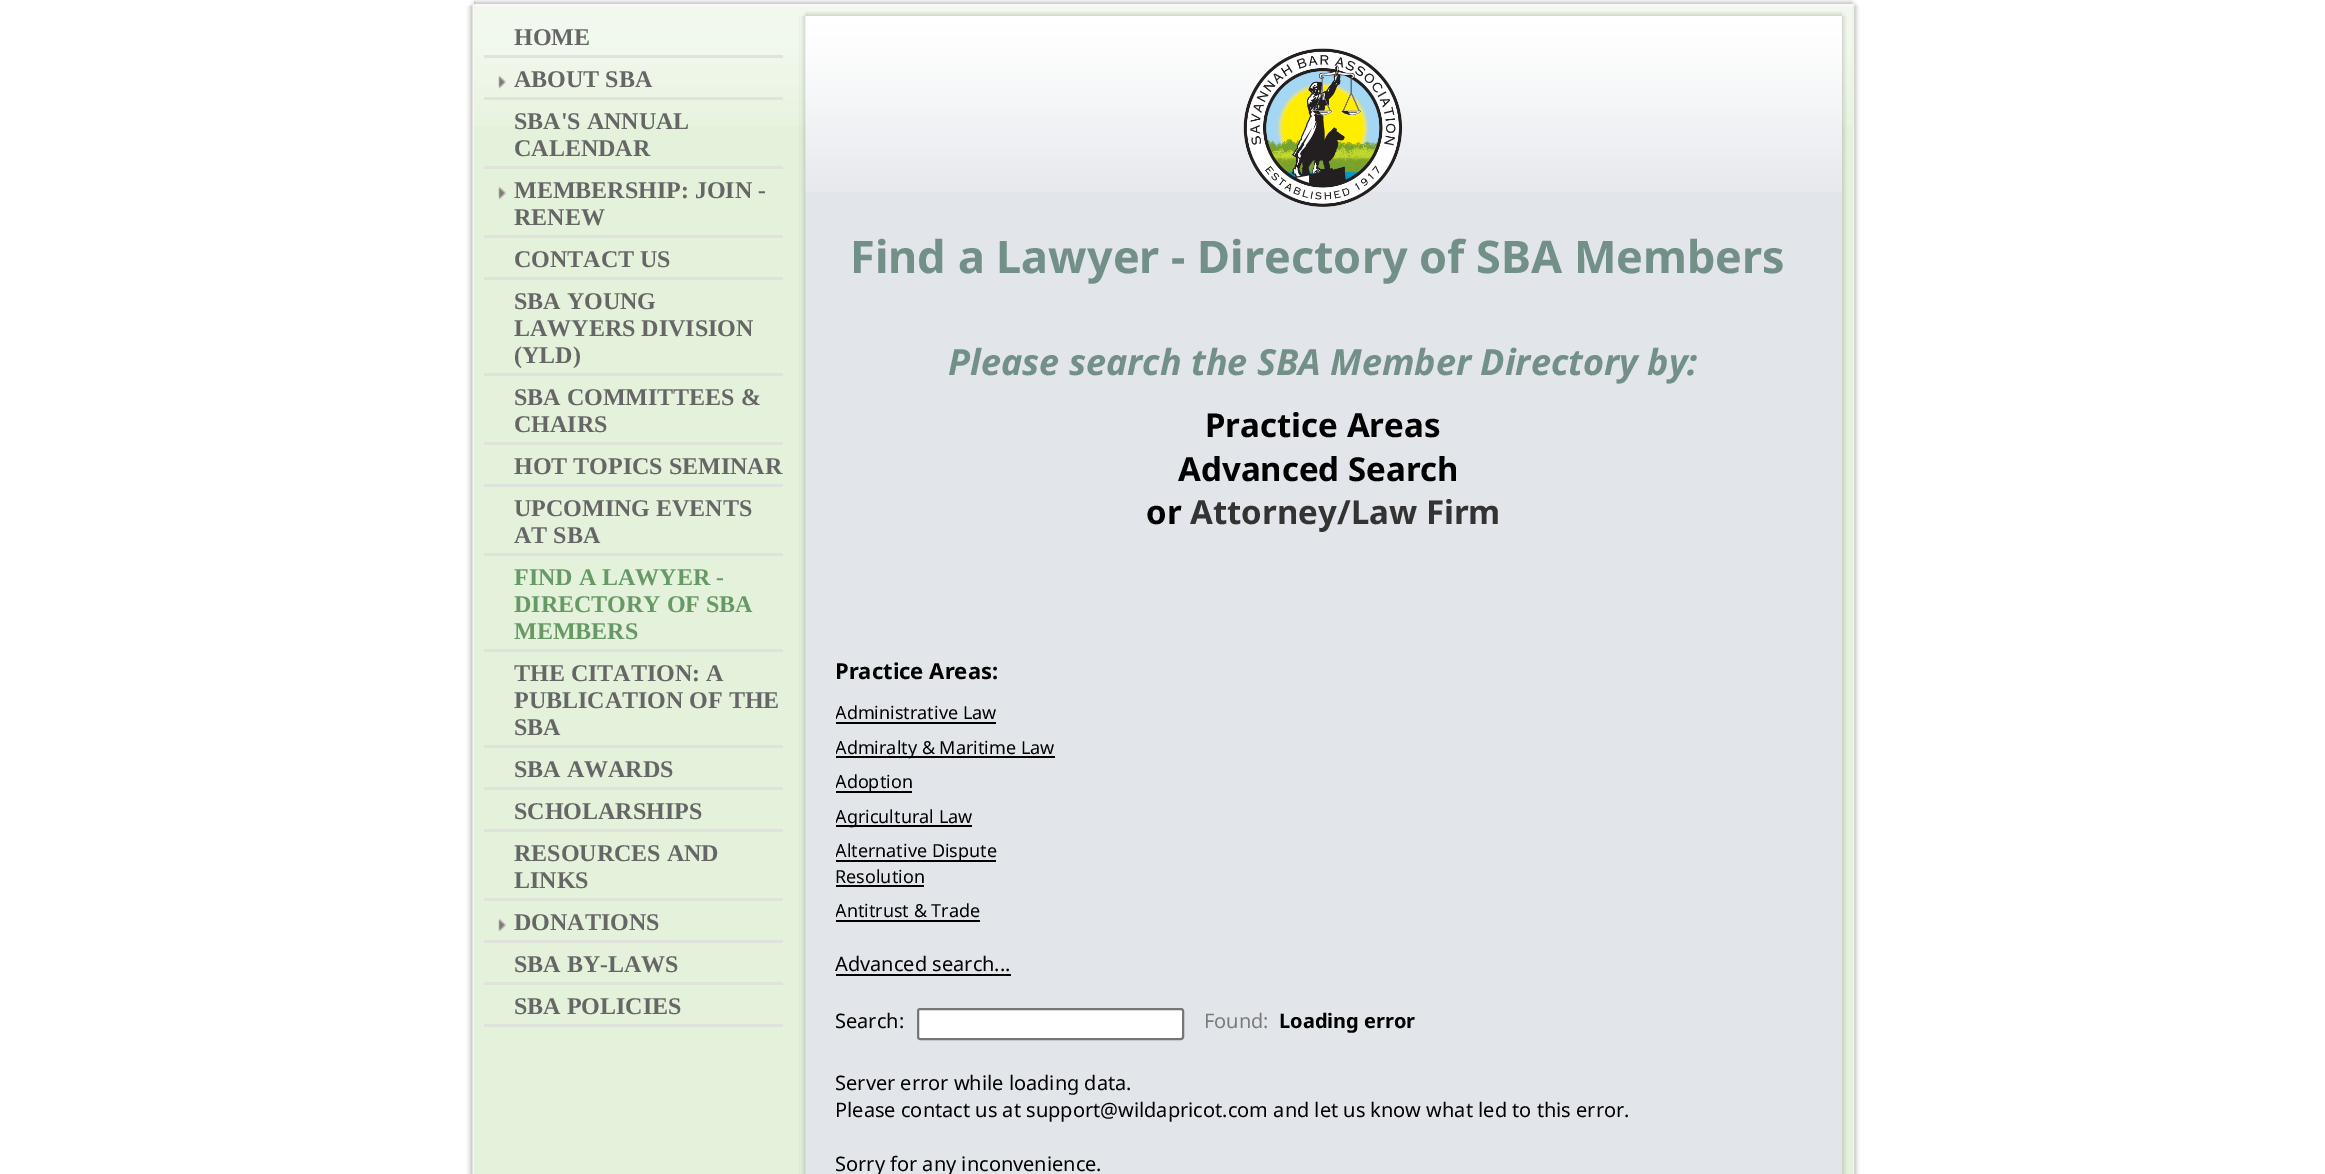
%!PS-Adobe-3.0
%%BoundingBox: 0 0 2325 1174
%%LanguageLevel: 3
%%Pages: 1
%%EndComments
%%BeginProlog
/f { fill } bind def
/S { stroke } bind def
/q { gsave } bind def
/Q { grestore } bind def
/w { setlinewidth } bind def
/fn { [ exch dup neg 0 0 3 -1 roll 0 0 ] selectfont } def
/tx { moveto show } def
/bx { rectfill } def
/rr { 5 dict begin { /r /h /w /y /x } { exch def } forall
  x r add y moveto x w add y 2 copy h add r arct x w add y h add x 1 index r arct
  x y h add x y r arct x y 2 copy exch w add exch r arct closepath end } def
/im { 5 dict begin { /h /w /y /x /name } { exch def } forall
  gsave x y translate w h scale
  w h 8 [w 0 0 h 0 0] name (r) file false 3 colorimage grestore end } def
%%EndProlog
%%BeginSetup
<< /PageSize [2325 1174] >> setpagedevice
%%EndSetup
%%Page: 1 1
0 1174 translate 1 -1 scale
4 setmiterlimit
1 setgray
0 0 2325 1174 bx
(image3.raw) 466 5 9 1169 im
(image4.raw) 1852 5 8 1169 im
0.894 0.945 0.859 setrgbcolor
474 6 1379 1168 bx
(image5.raw) 474 5 1379 121 im
(image0.raw) 469 0 7 6 im
(image1.raw) 1852 0 6 6 im
(image2.raw) 474 0 1379 5 im
0.922 0.945 0.902 setrgbcolor
803 13 4 3 bx
1842 13 3 3 bx
(image6.raw) 805 11 1037 5 im
0.875 0.89 0.863 setrgbcolor
484 55 299 3 bx
/LiberationSerif-Bold 24 fn
0.4 setgray
(HOME) 514 45 tx
0.875 0.89 0.863 setrgbcolor
484 97 299 3 bx
(image7.raw) 498 75 8 14 im
0.4 setgray
(ABOUT SBA) 514 87 tx
0.875 0.89 0.863 setrgbcolor
484 166 299 3 bx
0.4 setgray
(SBA'S ANNUAL) 514 129 tx
(CALENDAR) 514 156 tx
0.875 0.89 0.863 setrgbcolor
484 235 299 3 bx
(image8.raw) 498 186 8 14 im
0.4 setgray
(MEMBERSHIP: JOIN -) 514 198 tx
(RENEW) 514 225 tx
0.875 0.89 0.863 setrgbcolor
484 277 299 3 bx
0.4 setgray
(CONTACT US) 514 267 tx
0.875 0.89 0.863 setrgbcolor
484 373 299 3 bx
0.4 setgray
(SBA YOUNG) 514 309 tx
(LAWYERS DIVISION) 514 336 tx
(\(YLD\)) 514 363 tx
0.875 0.89 0.863 setrgbcolor
484 442 299 3 bx
0.4 setgray
(SBA COMMITTEES &) 514 405 tx
(CHAIRS) 514 432 tx
0.875 0.89 0.863 setrgbcolor
484 484 299 3 bx
0.4 setgray
(HOT TOPICS SEMINAR) 514 474 tx
0.875 0.89 0.863 setrgbcolor
484 553 299 3 bx
0.4 setgray
(UPCOMING EVENTS) 514 516 tx
(AT SBA) 514 543 tx
0.875 0.89 0.863 setrgbcolor
484 649 299 3 bx
0.4 0.6 0.4 setrgbcolor
(FIND A LAWYER -) 514 585 tx
(DIRECTORY OF SBA) 514 612 tx
(MEMBERS) 514 639 tx
0.875 0.89 0.863 setrgbcolor
484 745 299 3 bx
0.4 setgray
(THE CITATION: A) 514 681 tx
(PUBLICATION OF THE) 514 708 tx
(SBA) 514 735 tx
0.875 0.89 0.863 setrgbcolor
484 787 299 3 bx
0.4 setgray
(SBA AWARDS) 514 777 tx
0.875 0.89 0.863 setrgbcolor
484 829 299 3 bx
0.4 setgray
(SCHOLARSHIPS) 514 819 tx
0.875 0.89 0.863 setrgbcolor
484 898 299 3 bx
0.4 setgray
(RESOURCES AND) 514 861 tx
(LINKS) 514 888 tx
0.875 0.89 0.863 setrgbcolor
484 940 299 3 bx
(image8.raw) 498 918 8 14 im
0.4 setgray
(DONATIONS) 514 930 tx
0.875 0.89 0.863 setrgbcolor
484 982 299 3 bx
0.4 setgray
(SBA BY-LAWS) 514 972 tx
0.875 0.89 0.863 setrgbcolor
484 1024 299 3 bx
0.4 setgray
(SBA POLICIES) 514 1014 tx
(image9.raw) 799 16 7 1158 im
(image10.raw) 1842 16 5 1158 im
0.886 0.898 0.918 setrgbcolor
806 20 1036 1154 bx
(image11.raw) 805 16 1037 176 im
(image12.raw) 1243 48 160 159 im
/NotoSans-Bold 45 fn
0.447 0.561 0.533 setrgbcolor
(Find a Lawyer - Directory of SBA Members) 850 273 tx
/NotoSans-BoldItalic 36 fn
(Please search the SBA Member Directory by:) 948 375 tx
/NotoSans-Bold 33 fn
0 setgray
(Practice Areas) 1205 437 tx
(Advanced Search) 1178 481 tx
(or) 1146 524 tx
0.2 setgray
(Attorney/Law Firm) 1190 524 tx
/NotoSans-Bold 22 fn
0 setgray
(Practice Areas:) 835 679 tx
q
836 696 220 240 rectclip
/NotoSans-Regular 18 fn
(Administrative Law) 835 719 tx
Q
836 722 160 2 bx
836 756 219 2 bx
q
836 696 220 240 rectclip
/NotoSans-Regular 18 fn
(Admiralty & Maritime Law) 835 754 tx
Q
836 791 76 2 bx
q
836 696 220 240 rectclip
/NotoSans-Regular 18 fn
(Adoption) 835 788 tx
Q
836 825 136 2 bx
q
836 696 220 240 rectclip
/NotoSans-Regular 18 fn
(Agricultural Law) 835 823 tx
Q
836 860 160 2 bx
q
836 696 220 240 rectclip
/NotoSans-Regular 18 fn
(Alternative Dispute) 835 857 tx
Q
/NotoSans-Regular 18 fn
(Resolution) 835 883 tx
836 885 88 2 bx
q
836 696 220 240 rectclip
(Antitrust & Trade) 835 917 tx
Q
836 920 144 2 bx
/NotoSans-Regular 20 fn
(Advanced search...) 835 971 tx
836 974 175 2 bx
(Search:) 835 1028 tx
1 setgray
918 1009 265 30 2 rr q f Q
0.463 setgray
2 w
S
0.482 setgray
(Found:) 1204 1028 tx
/NotoSans-Bold 20 fn
0 setgray
(Loading error) 1279 1028 tx
/NotoSans-Regular 20 fn
(Server error while loading data.) 835 1090 tx
(Please contact us at support@wildapricot.com and let us know what led to this error.) 835 1117 tx
(Sorry for any inconvenience.) 835 1171 tx
showpage
%%EOF
